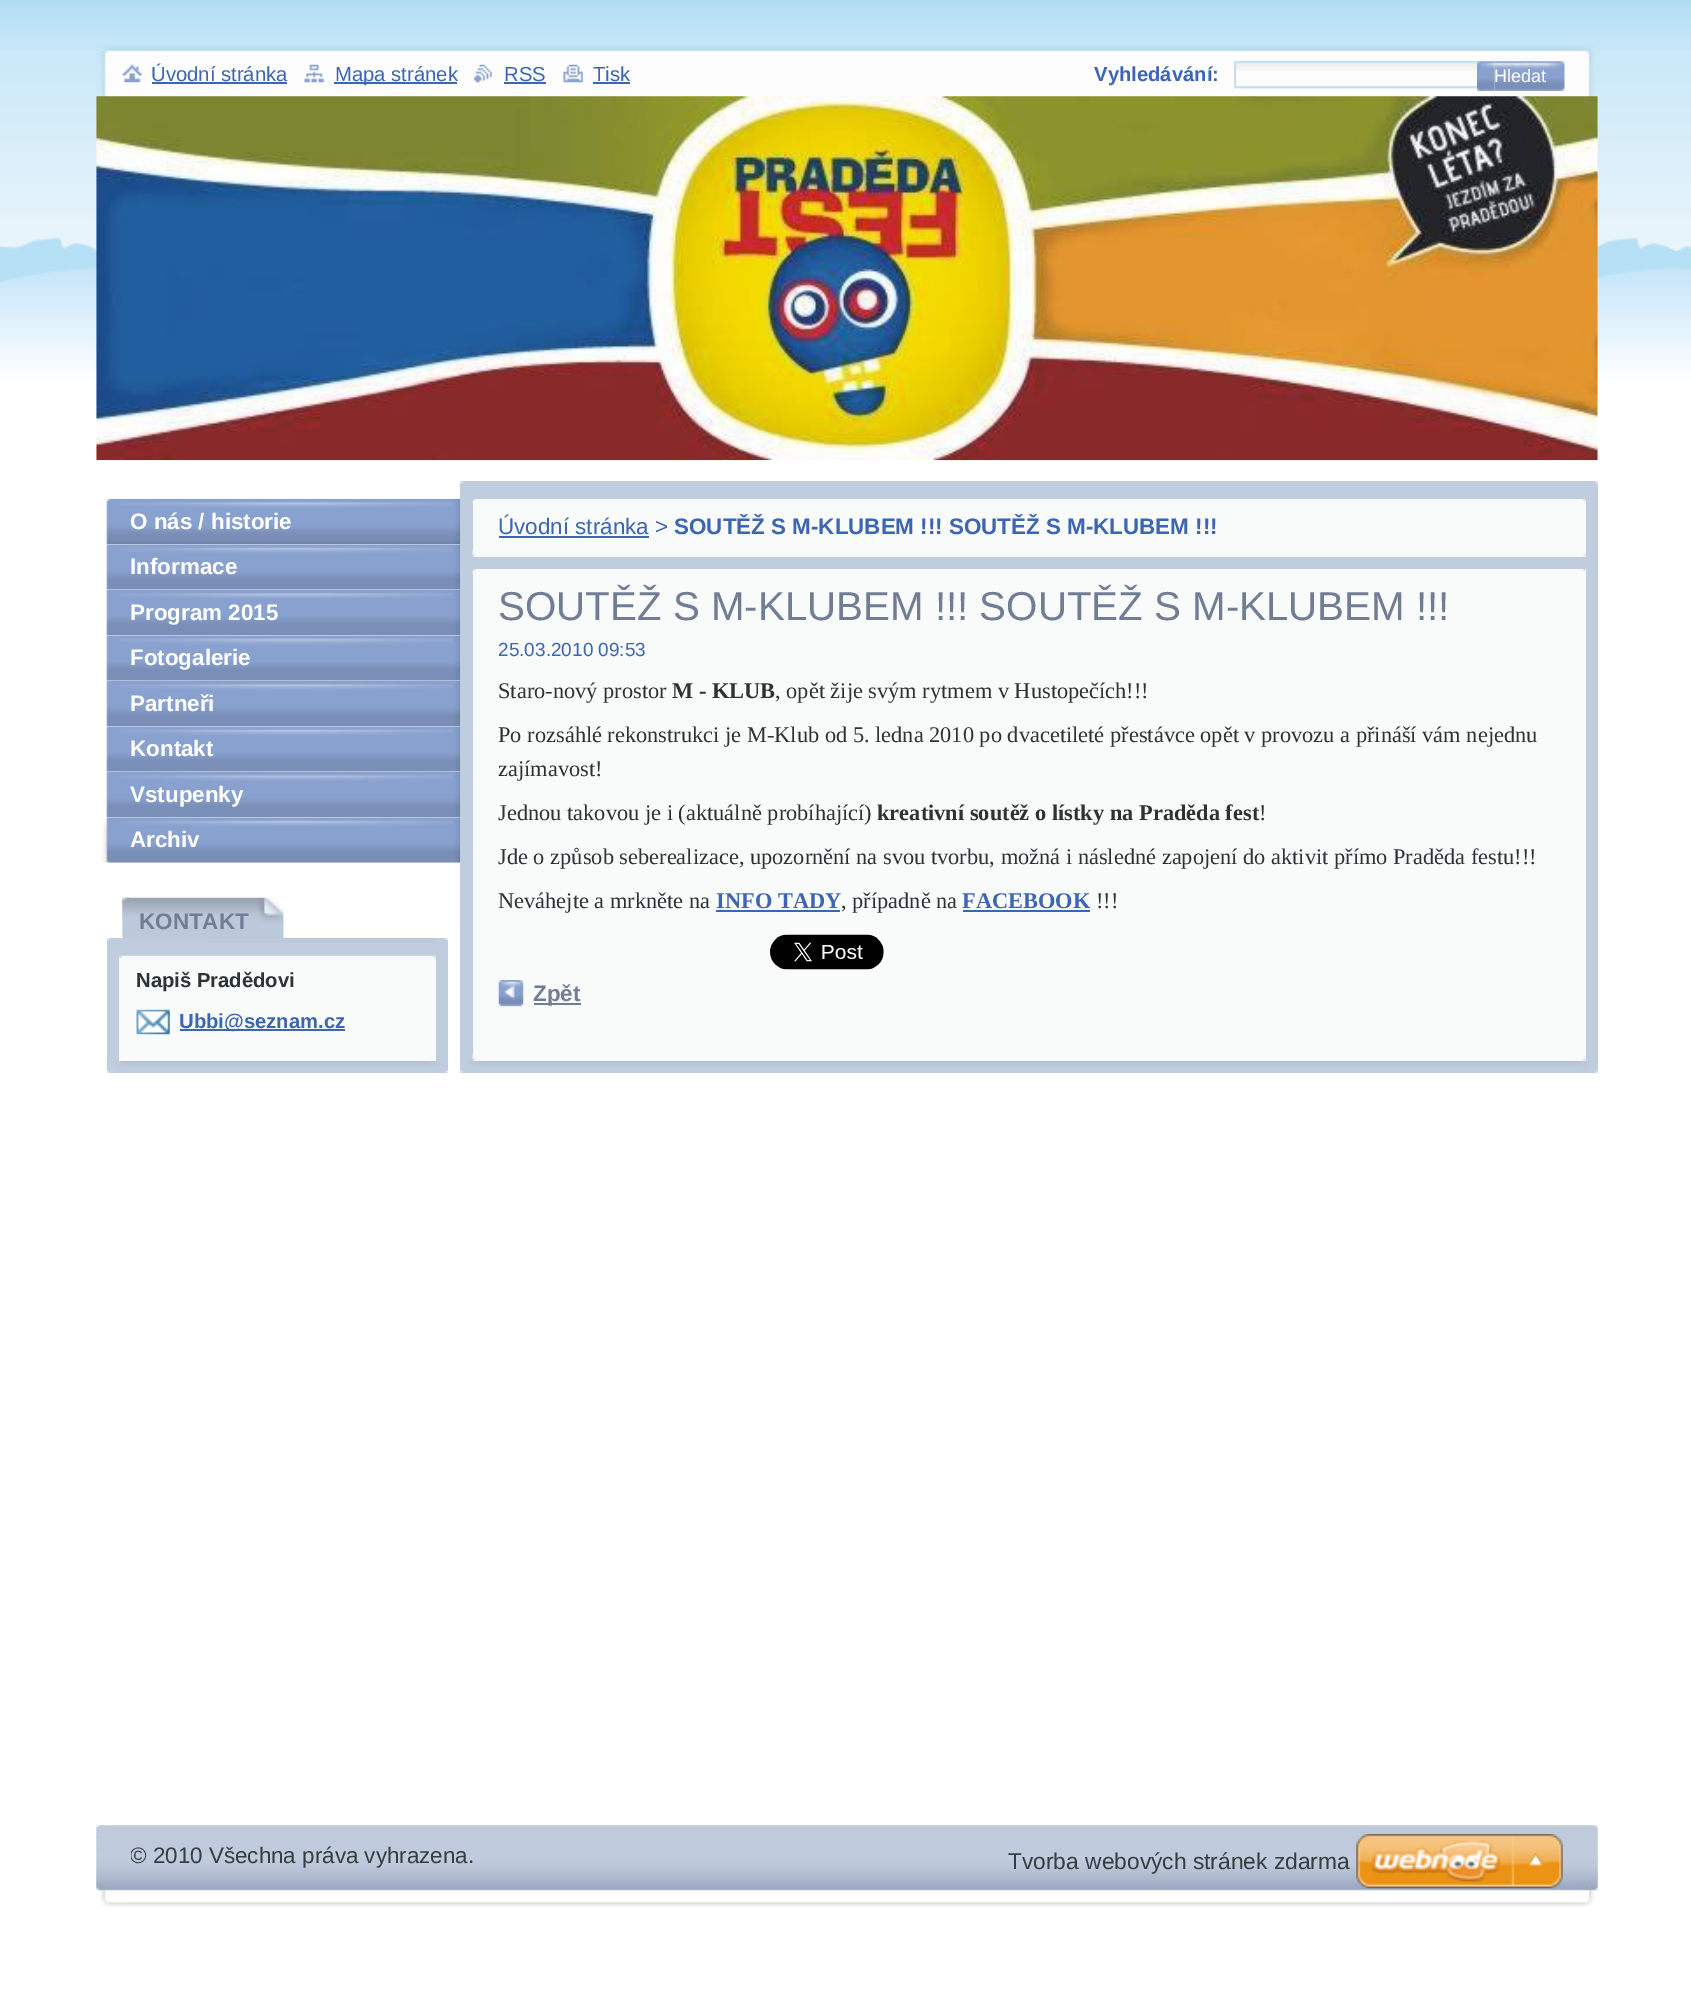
%!PS-Adobe-3.0
%%BoundingBox: 0 0 1691 2002
%%LanguageLevel: 3
%%Pages: 1
%%EndComments
%%BeginProlog
/q { gsave } bind def
/Q { grestore } bind def
/w { setlinewidth } bind def
/fn { [ exch dup neg 0 0 3 -1 roll 0 0 ] selectfont } def
/tx { moveto show } def
/bx { rectfill } def
/im { 5 dict begin { /h /w /y /x /name } { exch def } forall
  gsave x y translate w h scale
  w h 8 [w 0 0 h 0 0] name (r) file false 3 colorimage grestore end } def
%%EndProlog
%%BeginSetup
<< /PageSize [1691 2002] >> setpagedevice
%%EndSetup
%%Page: 1 1
0 2002 translate 1 -1 scale
4 setmiterlimit
1 setgray
0 0 1691 2002 bx
(image0.raw) 0 0 1691 431 im
(image1.raw) 96 44 1499 60 im
(image2.raw) 96 96 1502 365 im
(image3.raw) 122 64 20 19 im
/LiberationSans-Regular 20.25 fn
0.235 0.396 0.702 setrgbcolor
(Úvodní stránka) 151 81 tx
152 82 135 2 bx
(image4.raw) 304 64 20 19 im
334 82 123 2 bx
(Mapa stránek) 335 81 tx
(image5.raw) 474 64 18 19 im
(RSS) 504 81 tx
504 82 42 2 bx
(image6.raw) 563 64 20 19 im
(Tisk) 593 81 tx
593 82 37 2 bx
/LiberationSans-Bold 20.25 fn
(Vyhledávání:) 1094 81 tx
(image7.raw) 1233 61 244 10 im
0.784 0.882 0.933 setrgbcolor
2 w
1235 62 243 25 rectstroke
(image8.raw) 1477 61 18 30 im
(image9.raw) 1494 61 53 30 im
/LiberationSans-Regular 18 fn
1 setgray
(Hledat) 1494 82 tx
(image10.raw) 1547 61 18 30 im
0.753 0.804 0.871 setrgbcolor
460 481 1138 592 bx
(image11.raw) 106 498 355 47 im
/LiberationSans-Bold 22.4 fn
1 setgray
(O nás / historie) 130 529 tx
(image12.raw) 106 544 355 46 im
(Informace) 130 574 tx
(image13.raw) 106 590 355 46 im
(Program 2015) 130 620 tx
(image14.raw) 106 635 355 46 im
(Fotogalerie) 130 665 tx
(image13.raw) 106 681 355 46 im
(Partneři) 130 711 tx
(image14.raw) 106 726 355 46 im
(Kontakt) 130 756 tx
(image13.raw) 106 772 355 46 im
(Vstupenky) 130 802 tx
(image15.raw) 102 817 359 46 im
(Archiv) 130 847 tx
(image16.raw) 122 897 162 41 im
(image17.raw) 122 897 8 39 im
0.443 0.49 0.584 setrgbcolor
(KONTAKT) 139 929 tx
0.753 0.804 0.871 setrgbcolor
107 943 341 130 bx
(image18.raw) 106 1060 342 13 im
(image19.raw) 106 938 342 5 im
0.976 0.984 0.984 setrgbcolor
119 956 317 105 bx
(image20.raw) 119 955 317 4 im
/LiberationSans-Bold 20.25 fn
0.169 0.2 0.204 setrgbcolor
(Napiš Pradědovi) 136 987 tx
(image21.raw) 136 1009 34 26 im
0.235 0.396 0.702 setrgbcolor
180 1029 165 2 bx
(Ubbi@seznam.cz) 179 1028 tx
(image22.raw) 460 1060 1138 13 im
(image23.raw) 460 481 1138 3 im
0.976 0.984 0.984 setrgbcolor
473 499 1113 58 bx
(image24.raw) 472 551 1114 6 im
(image25.raw) 472 499 1114 5 im
/LiberationSans-Regular 22.4 fn
0.235 0.396 0.702 setrgbcolor
(Úvodní stránka >) 498 534 tx
499 536 150 2 bx
/LiberationSans-Bold 22.4 fn
(SOUTĚŽ S M-KLUBEM !!! SOUTĚŽ S M-KLUBEM !!!) 674 534 tx
0.976 0.984 0.984 setrgbcolor
473 569 1113 492 bx
(image26.raw) 472 1055 1114 6 im
(image25.raw) 472 569 1114 5 im
/LiberationSans-Regular 40.3 fn
0.443 0.49 0.584 setrgbcolor
(SOUTĚŽ S M-KLUBEM !!! SOUTĚŽ S M-KLUBEM !!!) 498 620 tx
/LiberationSans-Regular 19 fn
0.235 0.396 0.702 setrgbcolor
(25.03.2010 09:53) 498 656 tx
/LiberationSerif-Regular 22.4 fn
0.169 0.2 0.204 setrgbcolor
(Staro-nový prostor) 498 698 tx
/LiberationSerif-Bold 22.4 fn
(M - KLUB) 672 698 tx
/LiberationSerif-Regular 22.4 fn
(, opět žije svým rytmem v Hustopečích!!!) 775 698 tx
(Po rozsáhlé rekonstrukci je M-Klub od 5. ledna 2010 po dvacetileté přestávce opět v provozu a přináší vám nejednu) 498 742 tx
(zajímavost!) 498 776 tx
(Jednou takovou je i \(aktuálně probíhající\)) 498 820 tx
/LiberationSerif-Bold 22.4 fn
(kreativní soutěž o lístky na Praděda fest) 877 820 tx
/LiberationSerif-Regular 22.4 fn
(!) 1259 820 tx
(Jde o způsob seberealizace, upozornění na svou tvorbu, možná i následné zapojení do aktivit přímo Praděda festu!!!) 498 864 tx
(Neváhejte a mrkněte na) 498 908 tx
/LiberationSerif-Bold 22.4 fn
0.235 0.396 0.702 setrgbcolor
(INFO TADY) 716 908 tx
/LiberationSerif-Regular 22.4 fn
0.169 0.2 0.204 setrgbcolor
(, případně na) 841 908 tx
0.235 0.396 0.702 setrgbcolor
716 910 124 2 bx
/LiberationSerif-Bold 22.4 fn
(FACEBOOK) 962 908 tx
963 910 127 2 bx
/LiberationSerif-Regular 22.4 fn
0.169 0.2 0.204 setrgbcolor
(!!!) 1096 908 tx
(image27.raw) 770 934 114 36 im
(image28.raw) 498 980 26 27 im
0.443 0.49 0.584 setrgbcolor
534 1003 47 2 bx
/LiberationSans-Bold 22.4 fn
(Zpět) 533 1001 tx
(image29.raw) 96 1825 1502 82 im
q
131 1843 1432 33 rectclip
/LiberationSans-Regular 22.4 fn
0.208 0.239 0.247 setrgbcolor
(© 2010 Všechna práva vyhrazena.) 130 1863 tx
Q
/LiberationSans-Regular 22.75 fn
0.208 0.239 0.247 setrgbcolor
(Tvorba webových stránek zdarma) 1008 1869 tx
(image30.raw) 1356 1834 207 55 im
showpage
%%EOF
